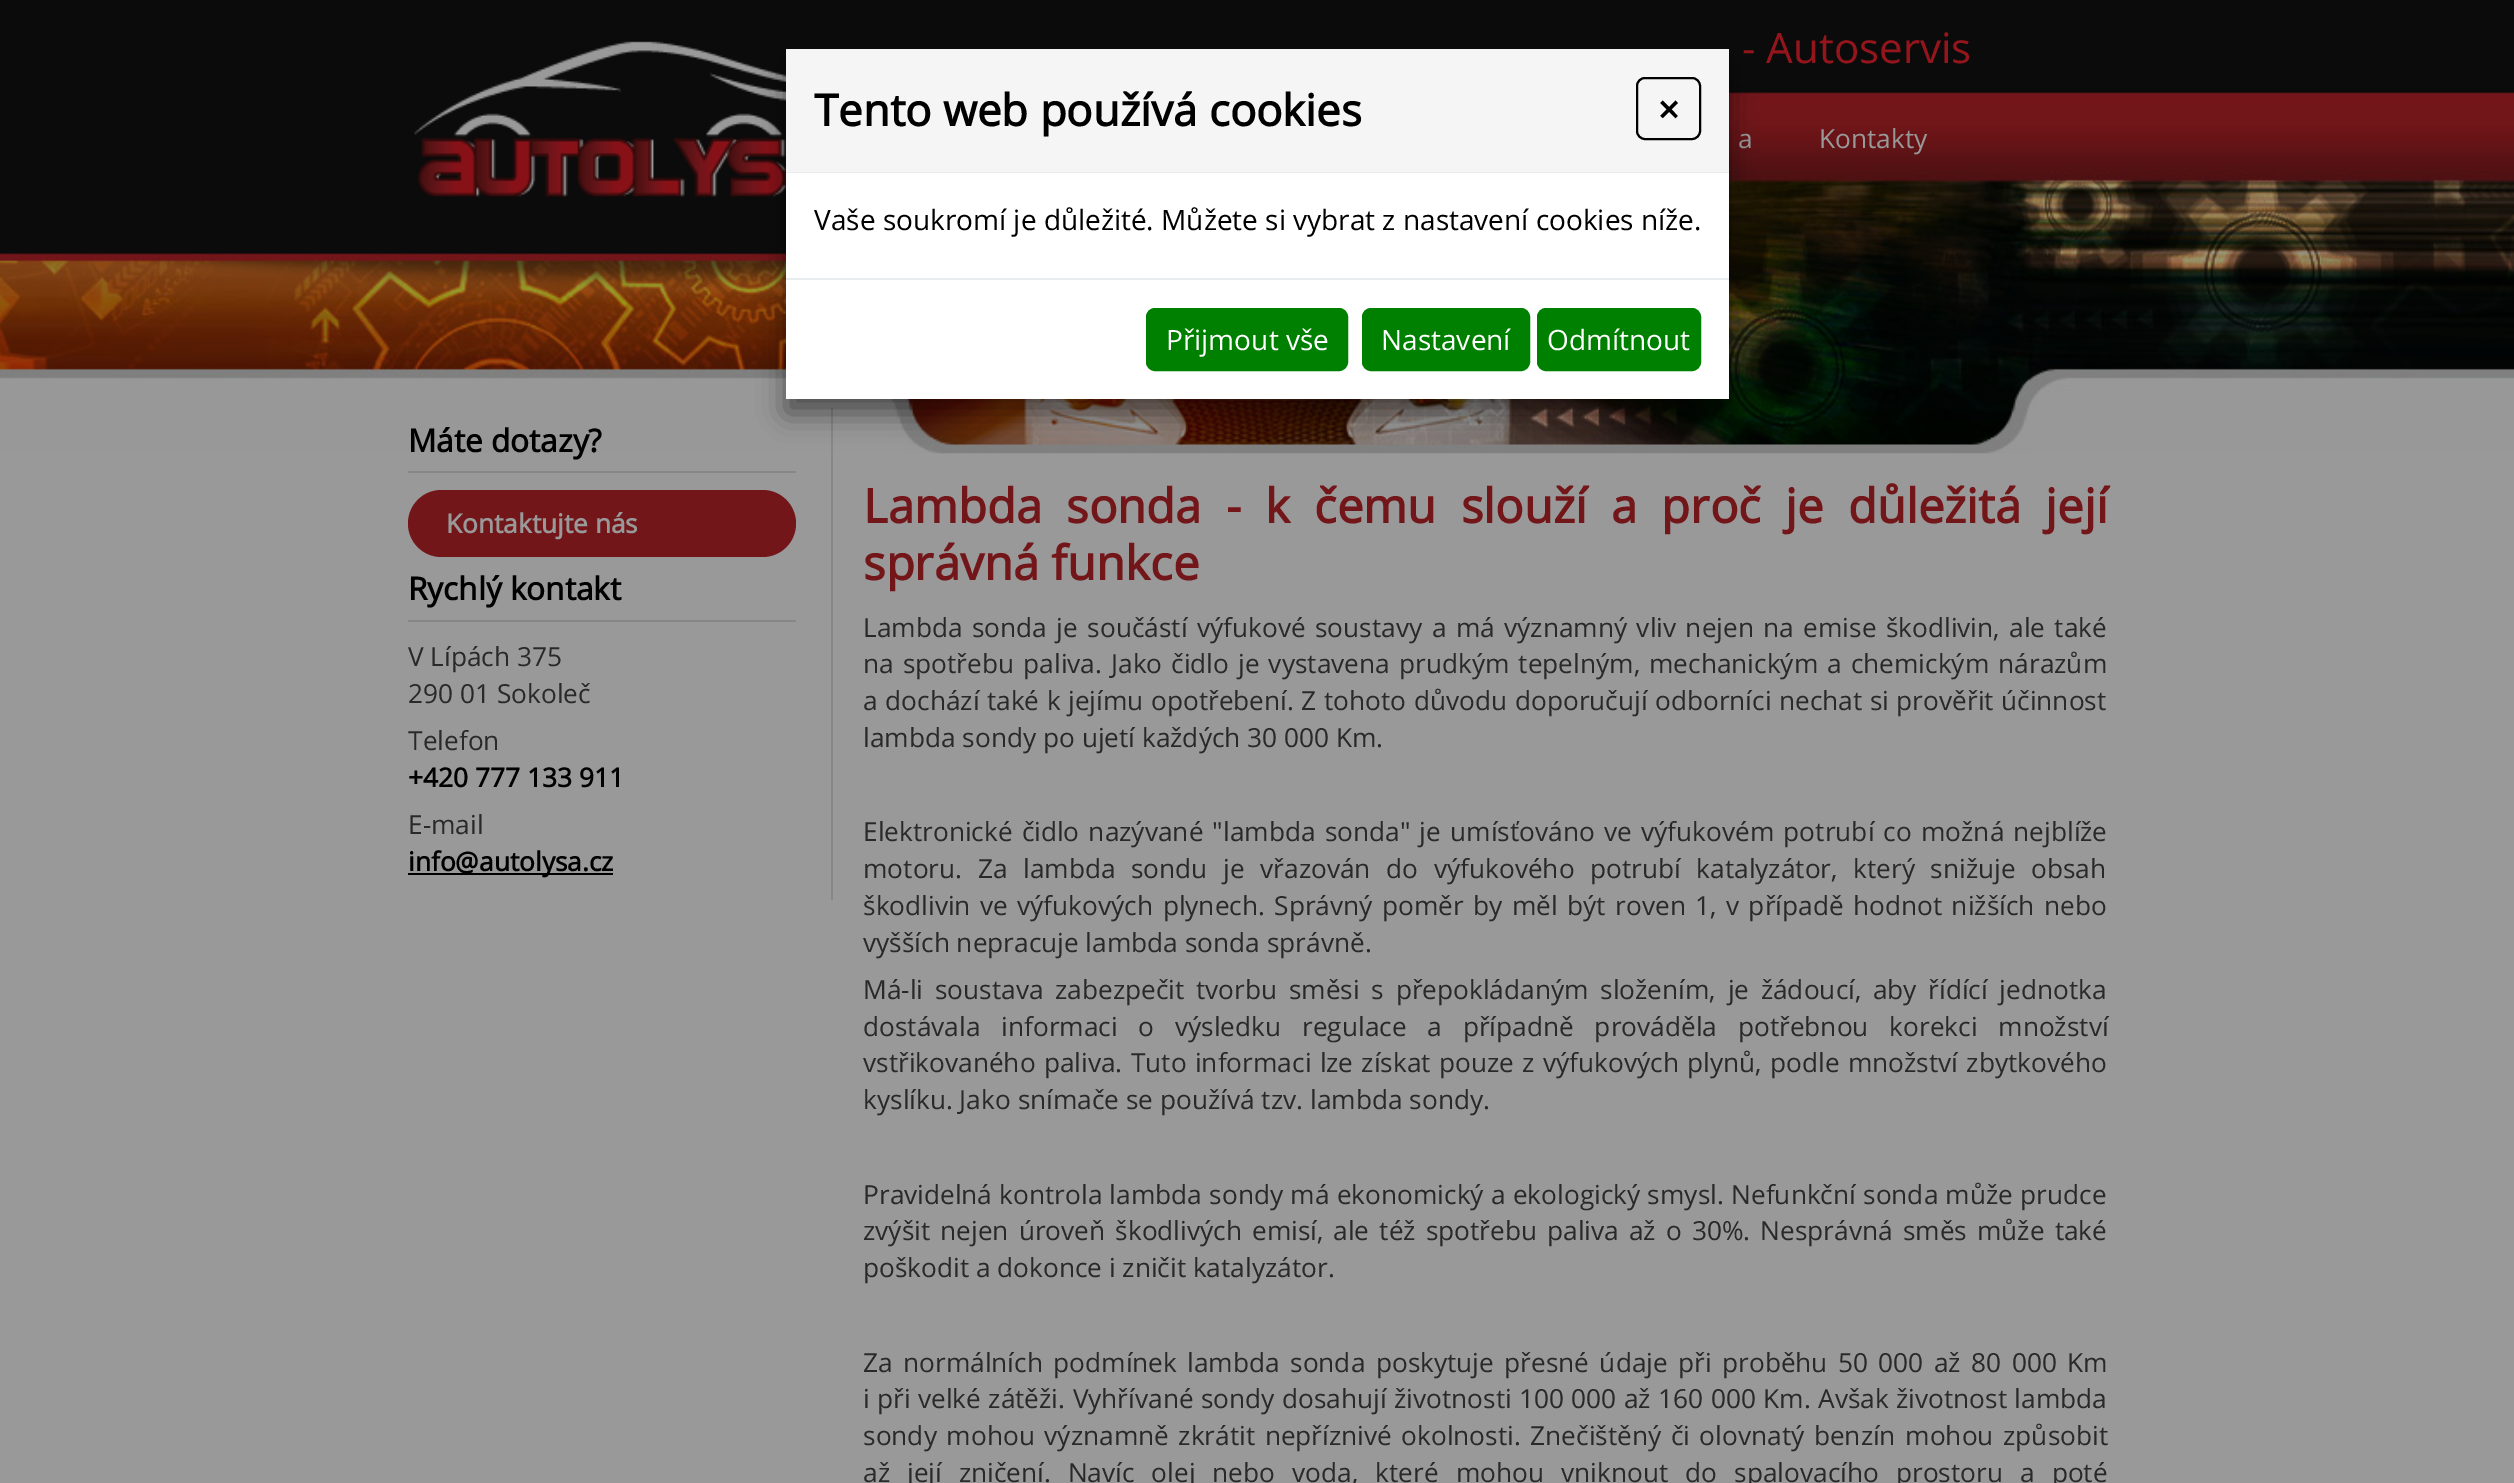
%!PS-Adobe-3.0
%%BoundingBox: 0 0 2514 1483
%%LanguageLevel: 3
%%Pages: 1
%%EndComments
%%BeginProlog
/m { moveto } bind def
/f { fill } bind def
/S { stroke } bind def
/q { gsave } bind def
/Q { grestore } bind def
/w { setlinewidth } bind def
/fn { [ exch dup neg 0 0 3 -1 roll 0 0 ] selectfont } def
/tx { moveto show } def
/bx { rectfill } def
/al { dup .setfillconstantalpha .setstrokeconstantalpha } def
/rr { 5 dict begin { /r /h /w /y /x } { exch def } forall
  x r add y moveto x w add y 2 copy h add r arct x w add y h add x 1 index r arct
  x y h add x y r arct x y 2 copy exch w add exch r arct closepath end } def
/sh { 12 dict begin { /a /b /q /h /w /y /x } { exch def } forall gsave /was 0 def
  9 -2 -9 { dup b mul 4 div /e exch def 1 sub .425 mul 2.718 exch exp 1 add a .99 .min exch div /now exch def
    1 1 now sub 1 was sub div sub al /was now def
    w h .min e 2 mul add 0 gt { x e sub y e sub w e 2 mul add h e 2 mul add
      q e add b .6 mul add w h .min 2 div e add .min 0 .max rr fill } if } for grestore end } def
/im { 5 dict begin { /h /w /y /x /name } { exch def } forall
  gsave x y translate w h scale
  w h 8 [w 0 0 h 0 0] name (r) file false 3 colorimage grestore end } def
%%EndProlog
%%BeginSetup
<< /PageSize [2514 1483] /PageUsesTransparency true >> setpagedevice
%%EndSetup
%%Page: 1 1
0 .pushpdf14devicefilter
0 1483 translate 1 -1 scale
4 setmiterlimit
0.6 setgray
0 0 2514 1483 bx
(image0.raw) 0 0 2514 454 im
(image1.raw) 414 41 372 156 im
/OpenSans-Regular 42 fn
0.584 0.082 0.11 setrgbcolor
(- Autoservis) 1742 63 tx
/OpenSans-Regular 26.25 fn
0.6 setgray
(a) 1738 148 tx
(Kontakty) 1819 148 tx
0.529 setgray
831 408 2 492 bx
408 471 388 2 bx
/OpenSans-Bold 31.5 fn
0 setgray
(Máte dotazy?) 408 452 tx
0.447 0.086 0.098 setrgbcolor
408 490 388 67 33.5 rr f
/OpenSans-Bold 26.25 fn
0.6 setgray
(Kontaktujte nás) 446 533 tx
0.529 setgray
408 620 388 2 bx
/OpenSans-Bold 31.5 fn
0 setgray
(Rychlý kontakt) 408 600 tx
/OpenSans-Regular 26.25 fn
0.161 setgray
(V Lípách 375) 408 666 tx
(290 01 Sokoleč) 408 703 tx
(Telefon) 408 750 tx
/OpenSans-Bold 26.25 fn
0 setgray
(+420 777 133 911) 408 787 tx
/OpenSans-Regular 26.25 fn
0.161 setgray
(E-mail) 408 834 tx
0 setgray
408 873 205 2 bx
/OpenSans-Bold 26.25 fn
(info@autolysa.cz) 408 871 tx
/OpenSans-Bold 47.25 fn
0.451 0.086 0.098 setrgbcolor
863 523 m 12 0 32 (Lambda sonda - k čemu slouží a proč je důležitá její) widthshow
(správná funkce) 863 580 tx
/OpenSans-Regular 26.25 fn
0.161 setgray
863 637 m 2.6 0 32 (Lambda sonda je součástí výfukové soustavy a má významný vliv nejen na emise škodlivin, ale také) widthshow
863 673 m 2.25 0 32 (na spotřebu paliva. Jako čidlo je vystavena prudkým tepelným, mechanickým a chemickým nárazům) widthshow
863 710 m 0.75 0 32 (a dochází také k jejímu opotřebení. Z tohoto důvodu doporučují odborníci nechat si prověřit účinnost) widthshow
(lambda sondy po ujetí každých 30 000 Km.) 863 747 tx
863 841 m 2.4 0 32 (Elektronické čidlo nazývané "lambda sonda" je umísťováno ve výfukovém potrubí co možná nejblíže) widthshow
863 878 m 8.75 0 32 (motoru. Za lambda sondu je vřazován do výfukového potrubí katalyzátor, který snižuje obsah) widthshow
863 915 m 2.6 0 32 (škodlivin ve výfukových plynech. Správný poměr by měl být roven 1, v případě hodnot nižších nebo) widthshow
(vyšších nepracuje lambda sonda správně.) 863 952 tx
863 999 m 4.9 0 32 (Má-li soustava zabezpečit tvorbu směsi s přepokládaným složením, je žádoucí, aby řídící jednotka) widthshow
863 1036 m 14 0 32 (dostávala informaci o výsledku regulace a případně prováděla potřebnou korekci množství) widthshow
863 1072 m 1.5 0 32 (vstřikovaného paliva. Tuto informaci lze získat pouze z výfukových plynů, podle množství zbytkového) widthshow
(kyslíku. Jako snímače se používá tzv. lambda sondy.) 863 1109 tx
863 1204 m 0.5 0 32 (Pravidelná kontrola lambda sondy má ekonomický a ekologický smysl. Nefunkční sonda může prudce) widthshow
863 1240 m 3.25 0 32 (zvýšit nejen úroveň škodlivých emisí, ale též spotřebu paliva až o 30%. Nesprávná směs může také) widthshow
(poškodit a dokonce i zničit katalyzátor.) 863 1277 tx
863 1372 m 3.6 0 32 (Za normálních podmínek lambda sonda poskytuje přesné údaje při proběhu 50 000 až 80 000 Km) widthshow
863 1408 m 0.6 0 32 (i při velké zátěži. Vyhřívané sondy dosahují životnosti 100 000 až 160 000 Km. Avšak životnost lambda) widthshow
863 1445 m 2.75 0 32 (sondy mohou významně zkrátit nepříznivé okolnosti. Znečištěný či olovnatý benzín mohou způsobit) widthshow
863 1482 m 10.25 0 32 (až její zničení. Navíc olej nebo voda, které mohou vniknout do spalovacího prostoru a poté) widthshow
0 setgray
786 63 943 350 0 14 0.5 sh
1 setgray
786 280 943 119 bx
0.961 setgray
786 49 943 123 bx
0.914 0.925 0.937 setrgbcolor
786 172 943 1 bx
/OpenSans-Bold 43.75 fn
0 setgray
(Tento web používá cookies) 814 126 tx
2 w
1637 78 63 61 8 rr S
/OpenSans-Bold 37 fn
(×) 1658 123 tx
1 setgray
786 173 943 105 bx
/OpenSans-Regular 28 fn
0 setgray
(Vaše soukromí je důležité. Můžete si vybrat z nastavení cookies níže.) 814 230 tx
0.914 0.925 0.937 setrgbcolor
786 278 943 2 bx
0 0.502 0 setrgbcolor
1147 309 200 61 8 rr q f Q
S
1 setgray
(Přijmout vše) 1166 350 tx
0 0.502 0 setrgbcolor
1363 309 166 61 8 rr q f Q
S
1 setgray
(Nastavení) 1381 350 tx
0 0.502 0 setrgbcolor
1538 309 162 61 8 rr q f Q
S
1 setgray
(Odmítnout) 1547 350 tx
.poppdf14devicefilter showpage
%%EOF
